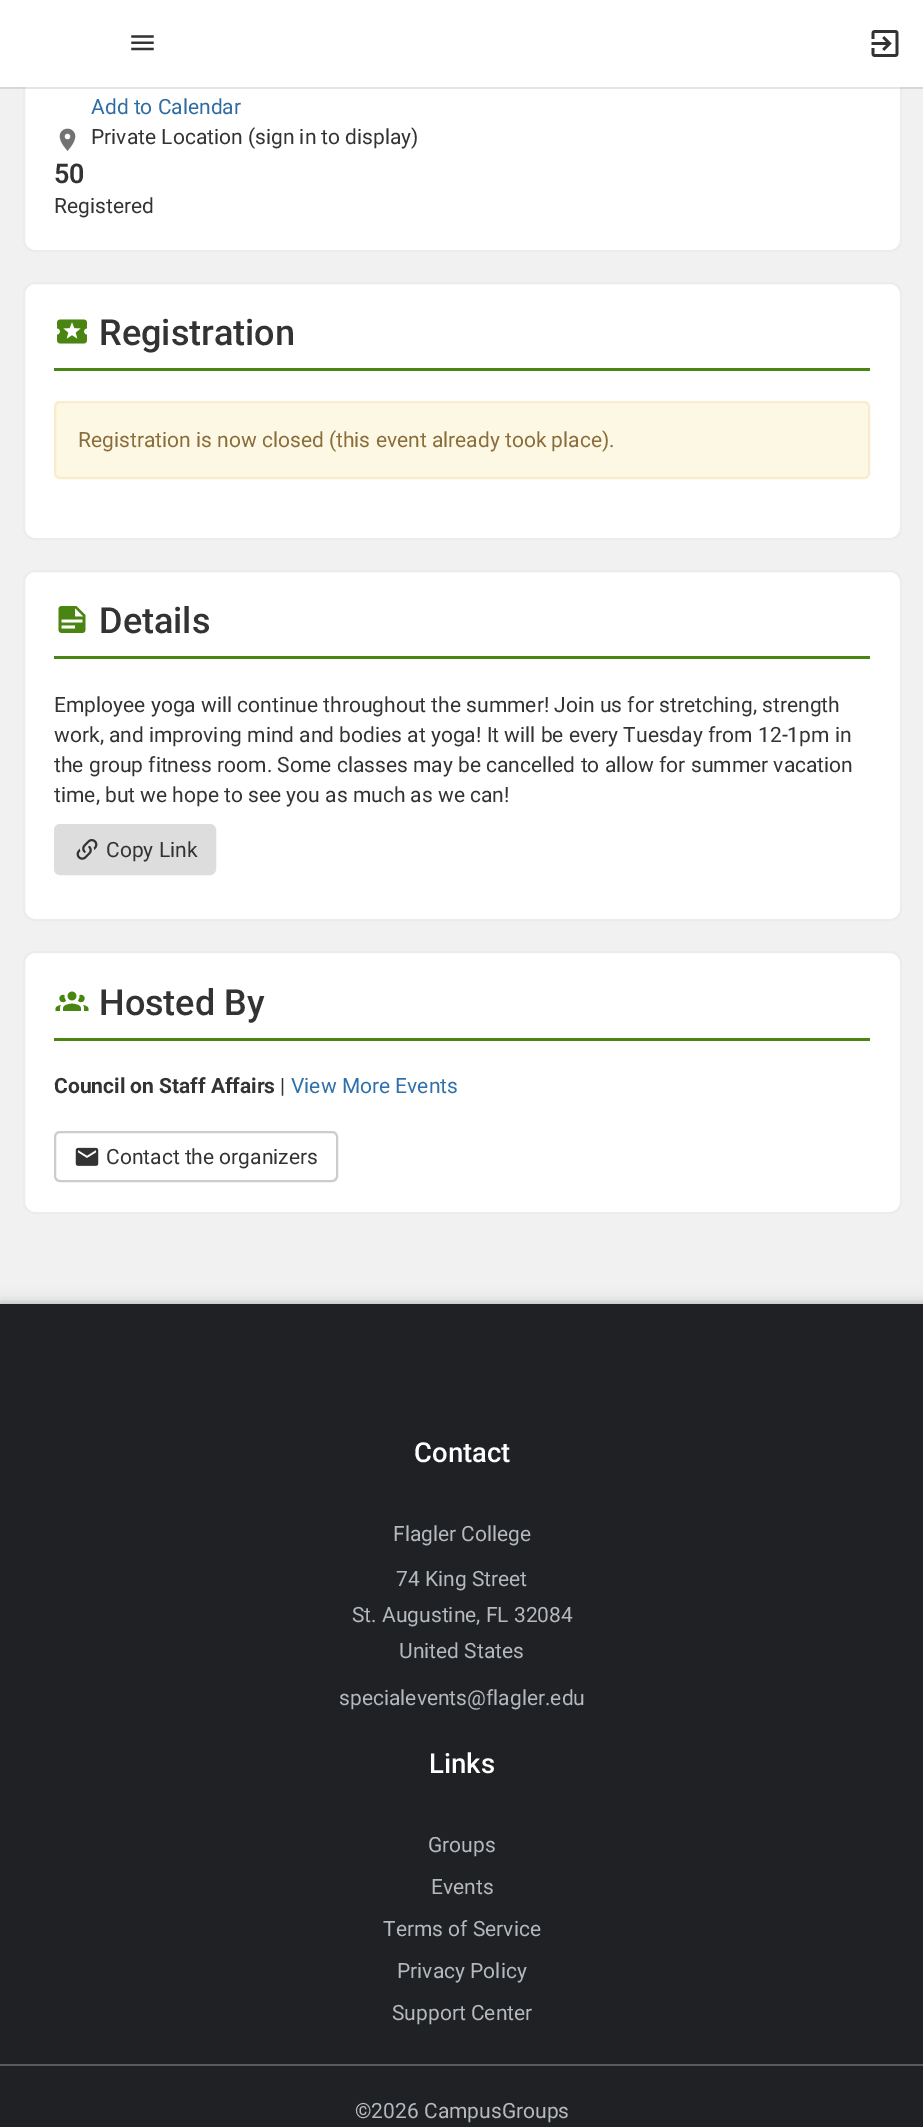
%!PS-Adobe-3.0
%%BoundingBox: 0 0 923 2127
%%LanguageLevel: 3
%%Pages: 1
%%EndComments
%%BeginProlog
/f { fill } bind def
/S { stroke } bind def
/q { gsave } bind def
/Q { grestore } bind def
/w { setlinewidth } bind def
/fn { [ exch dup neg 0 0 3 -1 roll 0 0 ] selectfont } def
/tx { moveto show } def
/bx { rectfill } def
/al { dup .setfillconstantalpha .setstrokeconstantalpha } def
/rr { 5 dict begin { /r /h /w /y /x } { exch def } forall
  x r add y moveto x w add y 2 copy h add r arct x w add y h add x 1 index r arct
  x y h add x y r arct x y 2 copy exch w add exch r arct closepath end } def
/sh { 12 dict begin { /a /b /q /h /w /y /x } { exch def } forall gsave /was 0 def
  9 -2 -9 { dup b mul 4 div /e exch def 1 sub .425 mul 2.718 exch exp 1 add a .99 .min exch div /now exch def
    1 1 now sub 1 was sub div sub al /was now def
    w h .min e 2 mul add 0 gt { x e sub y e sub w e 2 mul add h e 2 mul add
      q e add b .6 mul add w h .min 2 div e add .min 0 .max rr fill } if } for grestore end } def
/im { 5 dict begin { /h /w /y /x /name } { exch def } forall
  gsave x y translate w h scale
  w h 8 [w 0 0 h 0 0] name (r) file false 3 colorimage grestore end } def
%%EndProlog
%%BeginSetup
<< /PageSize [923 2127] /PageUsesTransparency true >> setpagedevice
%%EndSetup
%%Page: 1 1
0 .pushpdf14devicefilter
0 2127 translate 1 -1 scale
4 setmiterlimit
0.945 setgray
0 0 923 2127 bx
1 setgray
24 -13 877 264 11 rr q f Q
0.925 setgray
2 w
S
1 setgray
0 0 923 87 bx
0.1 al
0 setgray
0 87 105 2 bx
105 87 818 2 bx
1 al
(image0.raw) 131 35 23 16 im
(image1.raw) 871 30 28 27 im
/Roboto-Regular 21 fn
0.18 0.424 0.639 setrgbcolor
(Add to Calendar) 91 114 tx
(image2.raw) 59 128 17 23 im
0.2 setgray
(Private Location \(sign in to display\)) 91 144 tx
/Roboto-SemiBold 27 fn
(50) 54 183 tx
/Roboto-Regular 21 fn
(Registered) 54 213 tx
1 setgray
24 283 877 256 11 rr q f Q
0.925 setgray
S
(image3.raw) 57 319 30 25 im
/Roboto-Medium 36 fn
0.2 setgray
(Registration) 99 345 tx
0.29 0.518 0.067 setrgbcolor
54 368 816 3 bx
0.988 0.973 0.89 setrgbcolor
55 402 814 76 5 rr q f Q
0.98 0.922 0.8 setrgbcolor
S
/Roboto-Regular 21 fn
0.541 0.427 0.231 setrgbcolor
(Registration is now closed \(this event already took place\).) 78 447 tx
1 setgray
24 571 877 349 11 rr q f Q
0.925 setgray
S
(image4.raw) 58 606 28 27 im
/Roboto-Medium 36 fn
0.2 setgray
(Details) 99 633 tx
0.29 0.518 0.067 setrgbcolor
54 656 816 3 bx
/Roboto-Regular 21 fn
0.2 setgray
(Employee yoga will continue throughout the summer! Join us for stretching, strength) 54 712 tx
(work, and improving mind and bodies at yoga! It will be every Tuesday from 12-1pm in) 54 742 tx
(the group fitness room. Some classes may be cancelled to allow for summer vacation) 54 772 tx
(time, but we hope to see you as much as we can!) 54 802 tx
0.867 setgray
55 825 160 49 5 rr q f Q
S
(image5.raw) 76 839 22 21 im
0.2 setgray
(Copy Link) 106 857 tx
1 setgray
24 952 877 261 11 rr q f Q
0.925 setgray
S
(image6.raw) 55 991 34 20 im
/Roboto-Medium 36 fn
0.2 setgray
(Hosted By) 99 1015 tx
0.29 0.518 0.067 setrgbcolor
54 1038 816 3 bx
/Roboto-Bold 21 fn
0.2 setgray
(Council on Staff Affairs) 54 1093 tx
/Roboto-Regular 21 fn
(|) 280 1093 tx
0.188 0.443 0.671 setrgbcolor
(View More Events) 291 1093 tx
0.8 setgray
55 1132 282 49 5 rr S
(image7.raw) 75 1147 24 19 im
0.2 setgray
(Contact the organizers) 106 1164 tx
0 setgray
0 1302 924 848 0 7.5 0.14 sh
0 1302 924 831 0 2 0.1 sh
0.125 0.129 0.141 setrgbcolor
0 1304 923 823 bx
/Roboto-Medium 27.5 fn
1 setgray
(Contact) 414 1462 tx
/Roboto-Regular 21 fn
0.702 0.725 0.741 setrgbcolor
(Flagler College) 393 1541 tx
(74 King Street) 396 1586 tx
(St. Augustine, FL 32084) 352 1622 tx
(United States) 399 1658 tx
(specialevents@flagler.edu) 339 1705 tx
/Roboto-Medium 27.5 fn
1 setgray
(Links) 429 1773 tx
/Roboto-Regular 21 fn
0.702 0.725 0.741 setrgbcolor
(Groups) 428 1852 tx
(Events) 431 1894 tx
(Terms of Service) 383 1936 tx
(Privacy Policy) 397 1978 tx
(Support Center) 392 2020 tx
0.353 setgray
0 2064 923 2 bx
0.702 0.725 0.741 setrgbcolor
(©2026 CampusGroups) 355 2118 tx
.poppdf14devicefilter showpage
%%EOF
